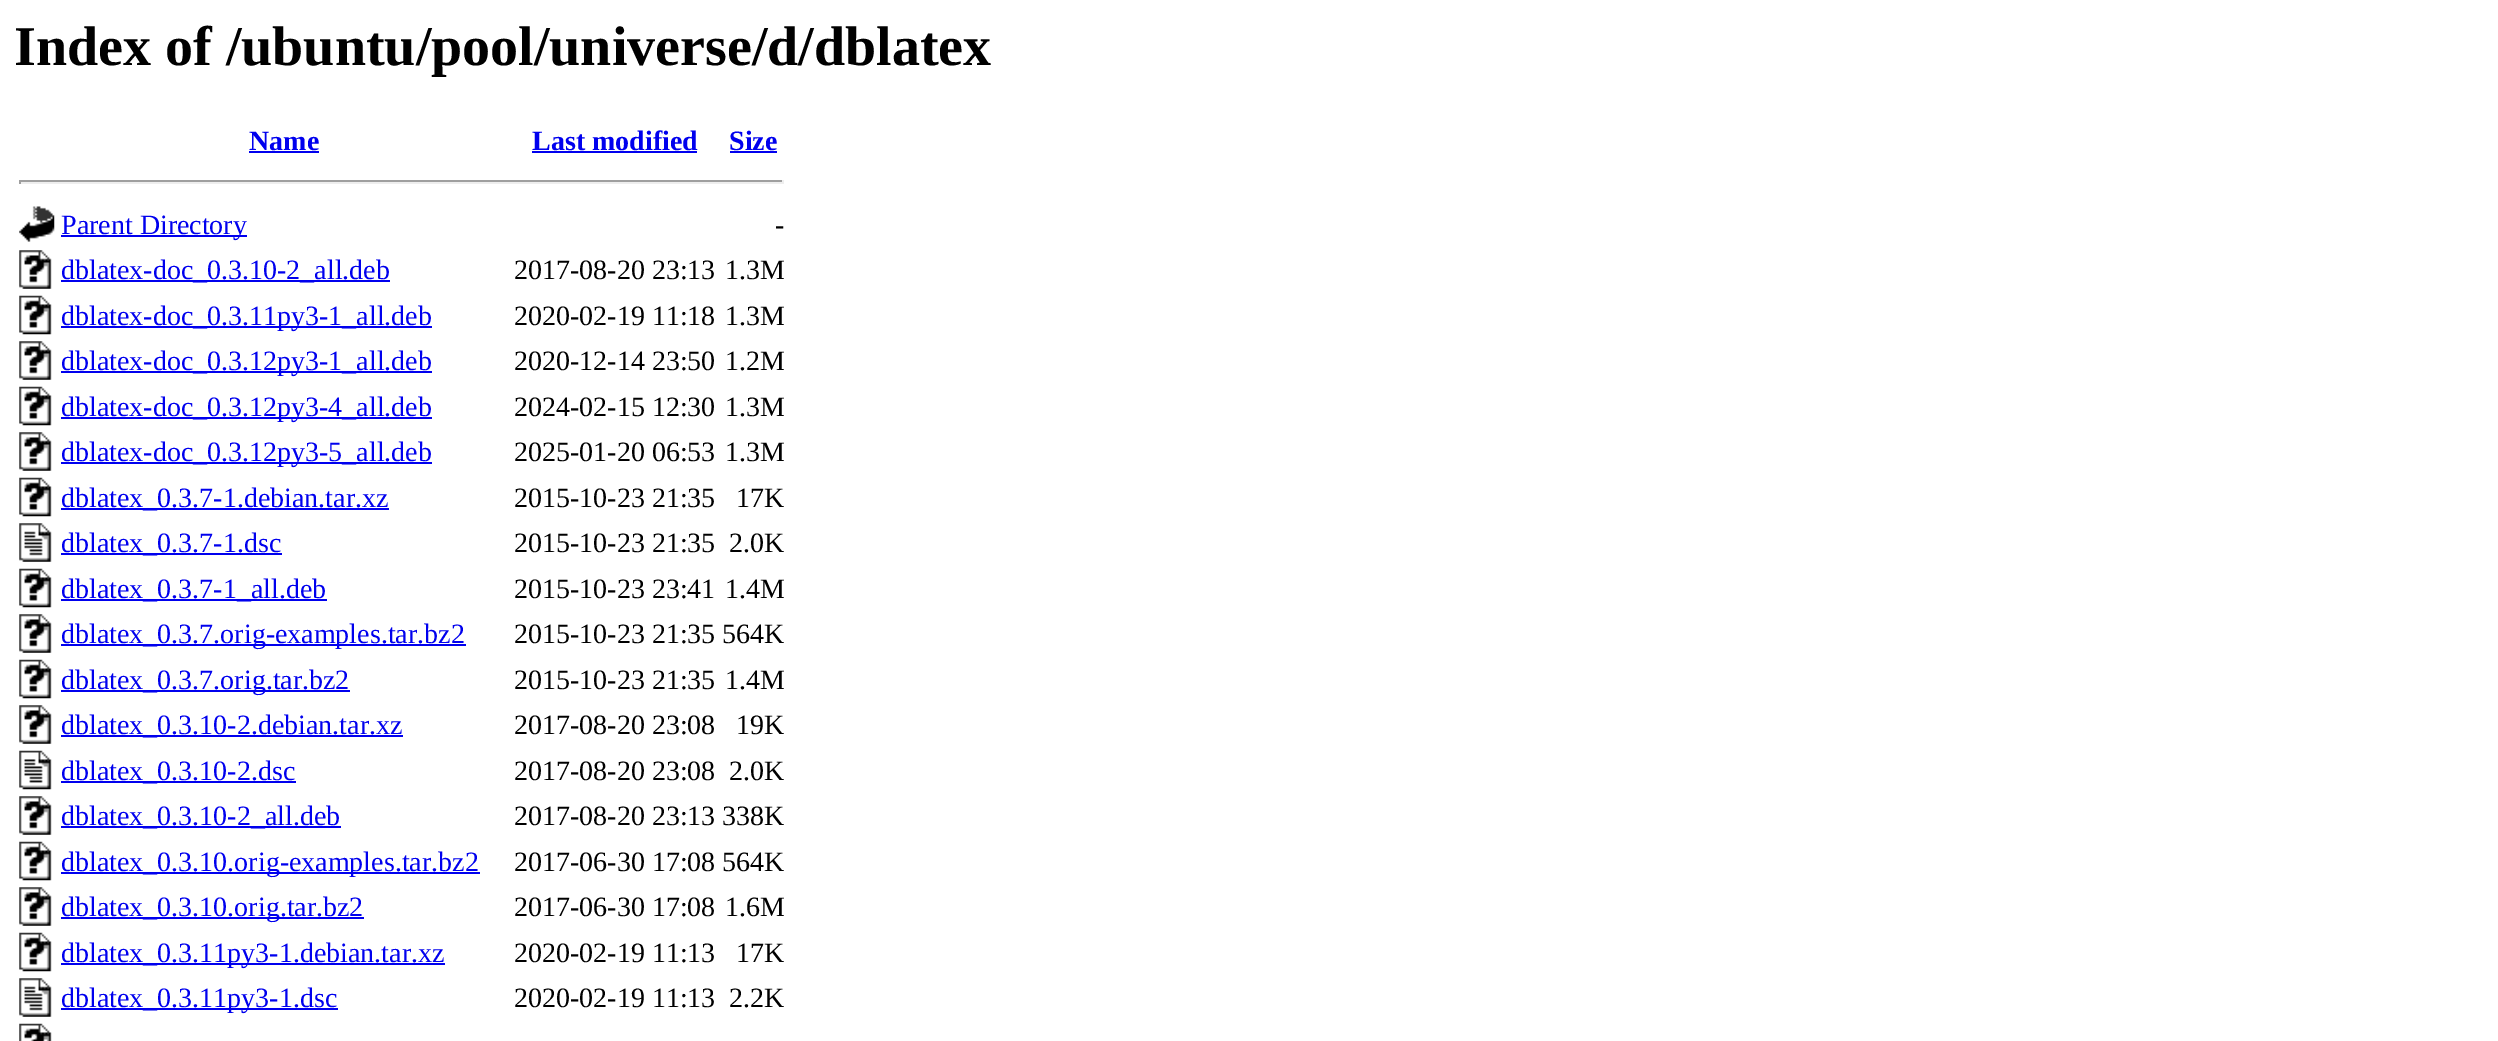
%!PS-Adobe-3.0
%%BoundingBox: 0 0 2498 1041
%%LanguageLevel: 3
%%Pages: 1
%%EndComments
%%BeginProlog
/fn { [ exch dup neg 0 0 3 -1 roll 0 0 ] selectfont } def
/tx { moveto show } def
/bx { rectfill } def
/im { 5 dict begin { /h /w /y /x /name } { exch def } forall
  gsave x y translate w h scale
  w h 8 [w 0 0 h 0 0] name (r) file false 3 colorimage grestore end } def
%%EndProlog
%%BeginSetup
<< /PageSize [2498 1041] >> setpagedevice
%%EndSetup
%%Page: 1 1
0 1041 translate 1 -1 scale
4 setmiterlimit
1 setgray
0 0 2498 1041 bx
/LiberationSerif-Bold 56 fn
0 setgray
(Index of /ubuntu/pool/universe/d/dblatex) 14 65 tx
/LiberationSerif-Bold 28 fn
0 0 0.933 setrgbcolor
(Name) 249 150 tx
249 151 70 2 bx
(Last modified) 532 150 tx
532 151 165 2 bx
(Size) 729 150 tx
730 151 47 2 bx
0.624 setgray
19 180 765 2 bx
0.933 setgray
782 180 2 4 bx
19 182 765 2 bx
0.624 setgray
19 180 2 4 bx
(image0.raw) 19 206 36 36 im
0 0 0.933 setrgbcolor
61 235 186 2 bx
/LiberationSerif-Regular 28 fn
(Parent Directory) 61 234 tx
0 setgray
(-) 775 234 tx
(image1.raw) 19 250 33 39 im
0 0 0.933 setrgbcolor
61 280 329 2 bx
(dblatex-doc_0.3.10-2_all.deb) 61 279 tx
0 setgray
(2017-08-20 23:13) 514 279 tx
(1.3M) 725 279 tx
(image2.raw) 19 295 33 40 im
0 0 0.933 setrgbcolor
61 326 371 2 bx
(dblatex-doc_0.3.11py3-1_all.deb) 61 325 tx
0 setgray
(2020-02-19 11:18) 514 325 tx
(1.3M) 725 325 tx
(image1.raw) 19 341 33 39 im
0 0 0.933 setrgbcolor
61 371 371 2 bx
(dblatex-doc_0.3.12py3-1_all.deb) 61 370 tx
0 setgray
(2020-12-14 23:50) 514 370 tx
(1.2M) 725 370 tx
(image2.raw) 19 386 33 40 im
0 0 0.933 setrgbcolor
61 417 371 2 bx
(dblatex-doc_0.3.12py3-4_all.deb) 61 416 tx
0 setgray
(2024-02-15 12:30) 514 416 tx
(1.3M) 725 416 tx
(image1.raw) 19 432 33 39 im
0 0 0.933 setrgbcolor
61 462 371 2 bx
(dblatex-doc_0.3.12py3-5_all.deb) 61 461 tx
0 setgray
(2025-01-20 06:53) 514 461 tx
(1.3M) 725 461 tx
(image2.raw) 19 477 33 40 im
0 0 0.933 setrgbcolor
61 508 328 2 bx
(dblatex_0.3.7-1.debian.tar.xz) 61 507 tx
0 setgray
(2015-10-23 21:35) 514 507 tx
(17K) 736 507 tx
(image3.raw) 19 523 33 39 im
0 0 0.933 setrgbcolor
61 553 221 2 bx
(dblatex_0.3.7-1.dsc) 61 552 tx
0 setgray
(2015-10-23 21:35) 514 552 tx
(2.0K) 729 552 tx
(image2.raw) 19 568 33 40 im
0 0 0.933 setrgbcolor
61 599 266 2 bx
(dblatex_0.3.7-1_all.deb) 61 598 tx
0 setgray
(2015-10-23 23:41) 514 598 tx
(1.4M) 725 598 tx
(image1.raw) 19 614 33 39 im
0 0 0.933 setrgbcolor
61 644 405 2 bx
(dblatex_0.3.7.orig-examples.tar.bz2) 61 643 tx
0 setgray
(2015-10-23 21:35 564K) 514 643 tx
(image2.raw) 19 659 33 40 im
0 0 0.933 setrgbcolor
61 690 289 2 bx
(dblatex_0.3.7.orig.tar.bz2) 61 689 tx
0 setgray
(2015-10-23 21:35) 514 689 tx
(1.4M) 725 689 tx
(image1.raw) 19 705 33 39 im
0 0 0.933 setrgbcolor
61 735 342 2 bx
(dblatex_0.3.10-2.debian.tar.xz) 61 734 tx
0 setgray
(2017-08-20 23:08) 514 734 tx
(19K) 736 734 tx
(image4.raw) 19 750 33 40 im
0 0 0.933 setrgbcolor
61 781 235 2 bx
(dblatex_0.3.10-2.dsc) 61 780 tx
0 setgray
(2017-08-20 23:08) 514 780 tx
(2.0K) 729 780 tx
(image1.raw) 19 796 33 39 im
0 0 0.933 setrgbcolor
61 826 280 2 bx
(dblatex_0.3.10-2_all.deb) 61 825 tx
0 setgray
(2017-08-20 23:13 338K) 514 825 tx
(image2.raw) 19 841 33 40 im
0 0 0.933 setrgbcolor
61 872 419 2 bx
(dblatex_0.3.10.orig-examples.tar.bz2) 61 871 tx
0 setgray
(2017-06-30 17:08 564K) 514 871 tx
(image1.raw) 19 887 33 39 im
0 0 0.933 setrgbcolor
61 917 303 2 bx
(dblatex_0.3.10.orig.tar.bz2) 61 916 tx
0 setgray
(2017-06-30 17:08) 514 916 tx
(1.6M) 725 916 tx
(image2.raw) 19 932 33 40 im
0 0 0.933 setrgbcolor
61 963 384 2 bx
(dblatex_0.3.11py3-1.debian.tar.xz) 61 962 tx
0 setgray
(2020-02-19 11:13) 514 962 tx
(17K) 736 962 tx
(image3.raw) 19 978 33 39 im
0 0 0.933 setrgbcolor
61 1008 277 2 bx
(dblatex_0.3.11py3-1.dsc) 61 1007 tx
0 setgray
(2020-02-19 11:13) 514 1007 tx
(2.2K) 729 1007 tx
(image5.raw) 19 1023 33 18 im
showpage
%%EOF
